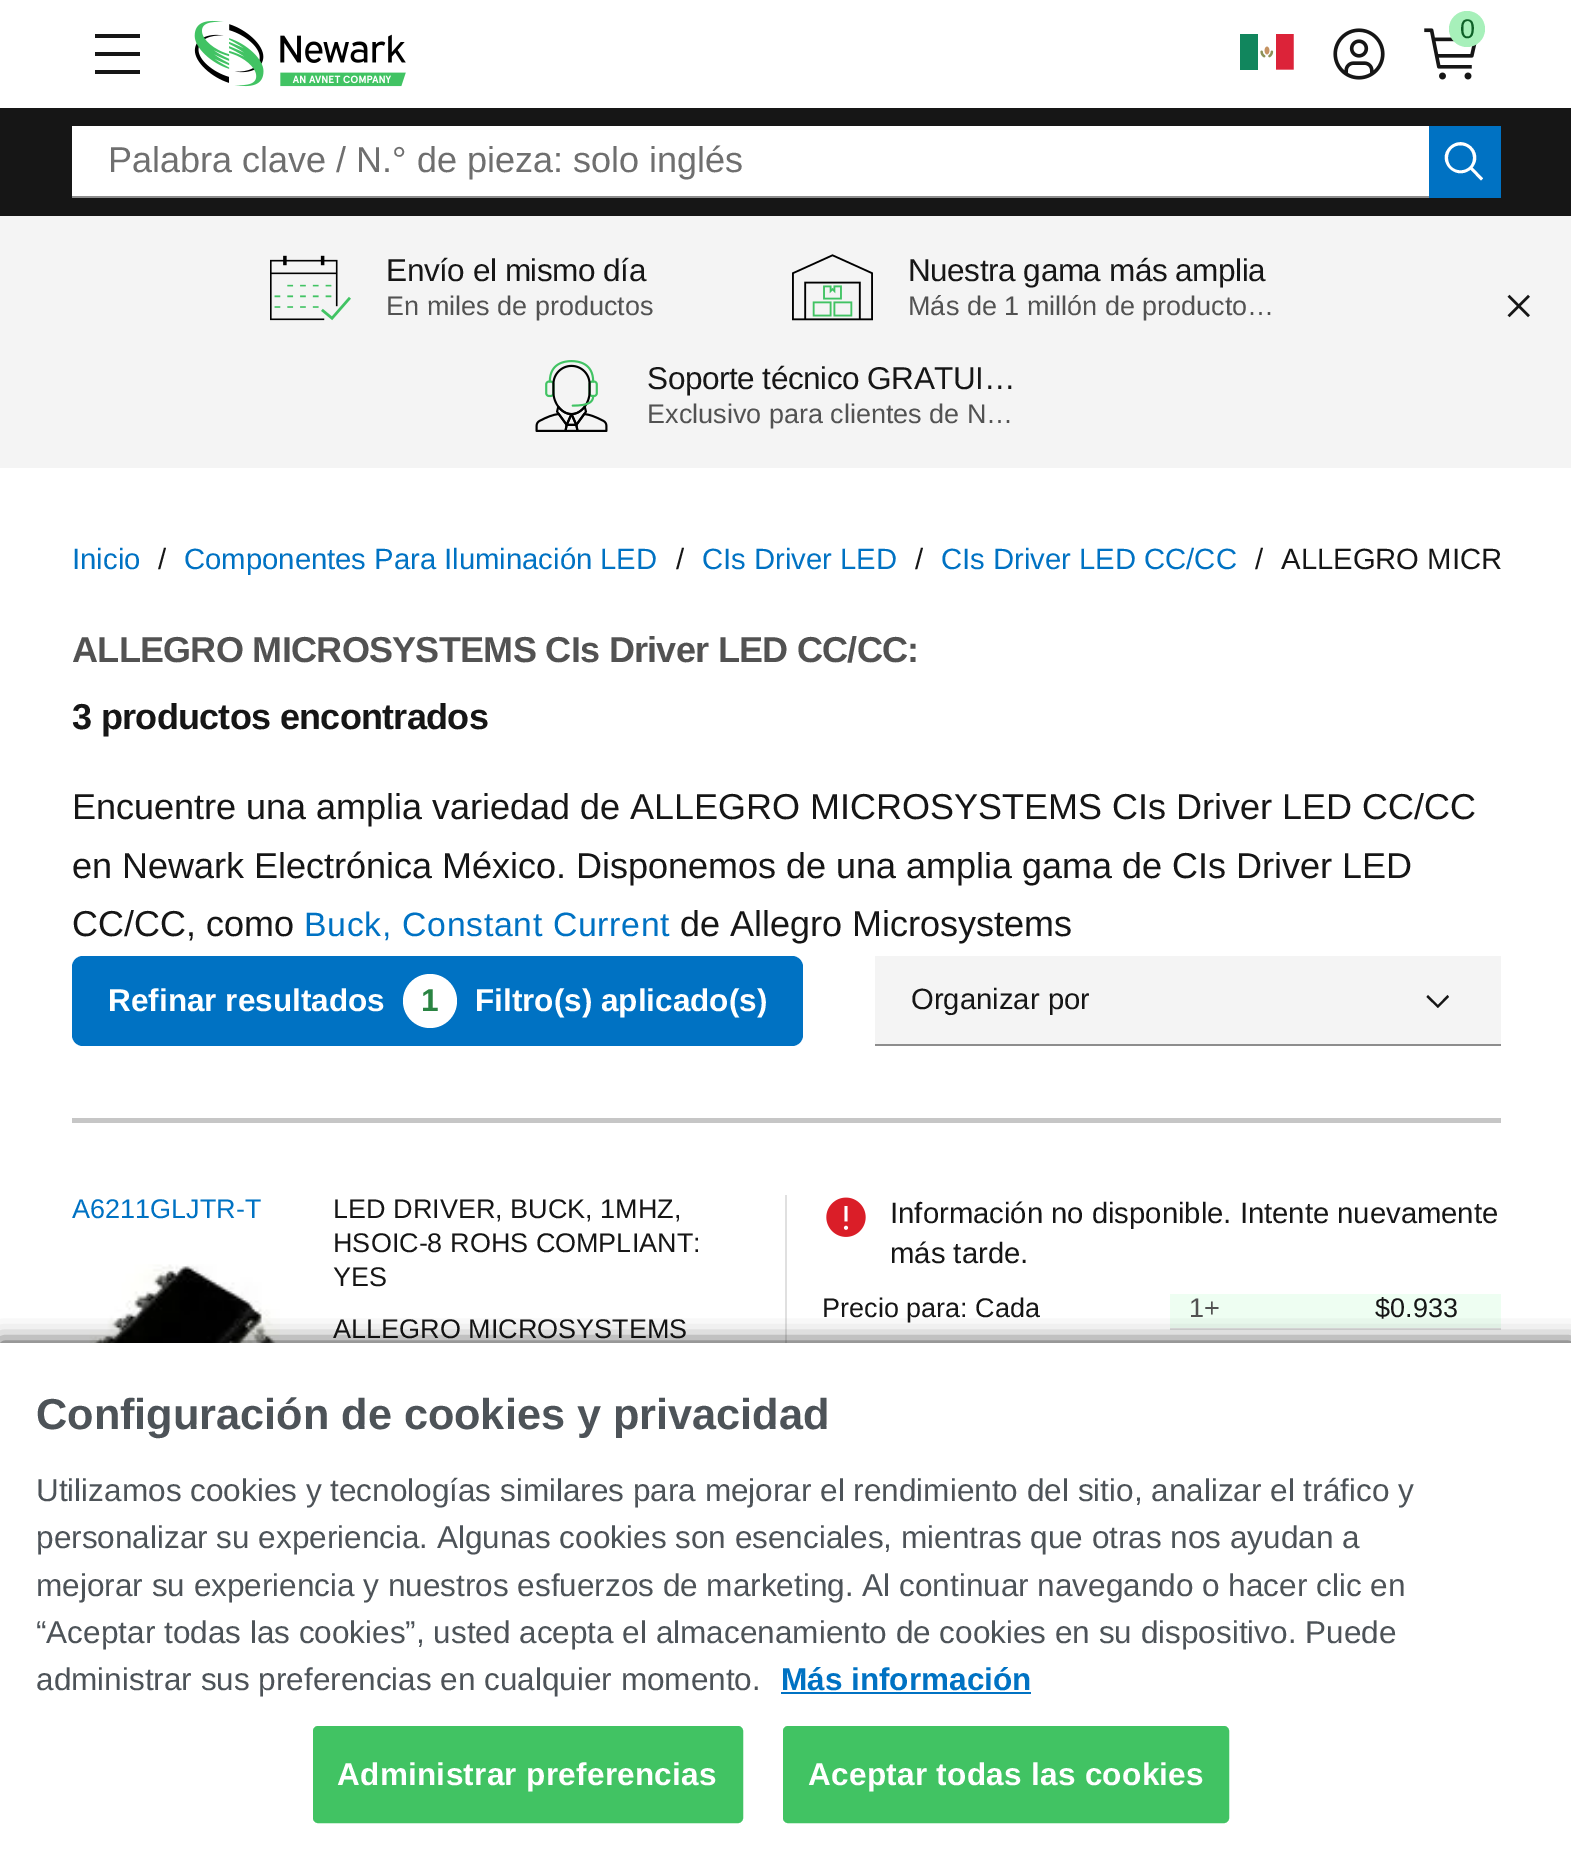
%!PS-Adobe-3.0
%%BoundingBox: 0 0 1571 1857
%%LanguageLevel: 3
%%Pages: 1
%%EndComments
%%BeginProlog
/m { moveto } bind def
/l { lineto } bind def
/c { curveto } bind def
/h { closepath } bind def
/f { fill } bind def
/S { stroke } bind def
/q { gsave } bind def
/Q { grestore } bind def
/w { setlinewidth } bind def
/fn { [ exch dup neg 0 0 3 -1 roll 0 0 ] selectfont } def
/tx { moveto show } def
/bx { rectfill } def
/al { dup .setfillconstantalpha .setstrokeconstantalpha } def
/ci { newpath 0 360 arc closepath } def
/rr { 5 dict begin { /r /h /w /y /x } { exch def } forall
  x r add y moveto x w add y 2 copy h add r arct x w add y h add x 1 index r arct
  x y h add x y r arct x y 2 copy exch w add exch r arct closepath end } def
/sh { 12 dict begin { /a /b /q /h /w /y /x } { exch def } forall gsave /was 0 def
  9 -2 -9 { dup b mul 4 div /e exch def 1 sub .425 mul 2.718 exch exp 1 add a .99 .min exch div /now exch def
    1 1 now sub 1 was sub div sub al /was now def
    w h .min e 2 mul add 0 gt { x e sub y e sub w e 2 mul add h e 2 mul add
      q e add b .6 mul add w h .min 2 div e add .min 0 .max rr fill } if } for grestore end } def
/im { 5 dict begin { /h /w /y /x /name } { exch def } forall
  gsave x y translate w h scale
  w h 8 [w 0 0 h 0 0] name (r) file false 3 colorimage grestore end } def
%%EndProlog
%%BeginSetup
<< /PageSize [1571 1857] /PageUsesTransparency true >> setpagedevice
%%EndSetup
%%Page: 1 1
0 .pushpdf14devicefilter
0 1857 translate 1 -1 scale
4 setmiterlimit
1 setgray
0 0 1571 1857 bx
0.086 setgray
95 34 45 4 bx
95 52 45 4 bx
95 70 45 4 bx
(image0.raw) 194 20 212 67 im
(image1.raw) 1240 34 54 36 im
(image2.raw) 1333 28 52 52 im
(image3.raw) 1424 28 53 52 im
0.655 0.941 0.729 setrgbcolor
1467 29 18 ci f
/LiberationSans-Regular 27 fn
0.055 0.376 0.153 setrgbcolor
(0) 1460 38 tx
0.086 setgray
0 108 1571 108 bx
1 setgray
72 126 1357 70 bx
0.553 setgray
72 196 1357 2 bx
/LiberationSans-Regular 36 fn
0.435 setgray
(Palabra clave / N.° de pieza: solo inglés) 108 172 tx
0 0.447 0.765 setrgbcolor
1429 126 72 72 bx
1 setgray
1483 178.5 m 1472.5 167.5 l 1485 152.5 1463.5 133 1449.5 147 c 1435.5 160.5 1455.5 182 1470.5 169.5 c 1481 180.5 l h 1448 158 m 1448 141 1473 141 1473 158 c 1473 174.5 1448 174.5 1448 158 c h f
0.957 setgray
0 216 1571 252 bx
(image4.raw) 270 255 81 66 im
/LiberationSans-Regular 31.5 fn
0.086 setgray
386 281 m -0.45 0 (Envío el mismo día) ashow
/LiberationSans-Regular 27 fn
0.322 setgray
(En miles de productos) 386 315 tx
(image5.raw) 792 254 81 67 im
/LiberationSans-Regular 31.5 fn
0.086 setgray
908 281 m -0.45 0 (Nuestra gama más amplia) ashow
/LiberationSans-Regular 27 fn
0.322 setgray
(Más de 1 millón de producto…) 908 315 tx
(image6.raw) 535 360 73 72 im
/LiberationSans-Regular 31.5 fn
0.086 setgray
647 389 m -0.45 0 (Soporte técnico GRATUI…) ashow
/LiberationSans-Regular 27 fn
0.322 setgray
(Exclusivo para clientes de N…) 647 423 tx
(image7.raw) 1507 294 23 24 im
/LiberationSans-Regular 29.25 fn
0 0.447 0.765 setrgbcolor
(Inicio) 72 569 tx
0.086 setgray
(/) 158 569 tx
0 0.447 0.765 setrgbcolor
(Componentes Para Iluminación LED) 184 569 tx
0.086 setgray
(/) 676 569 tx
0 0.447 0.765 setrgbcolor
(CIs Driver LED) 702 569 tx
0.086 setgray
(/) 915 569 tx
0 0.447 0.765 setrgbcolor
(CIs Driver LED CC/CC) 941 569 tx
0.086 setgray
(/) 1255 569 tx
(ALLEGRO MICR) 1281 569 tx
/LiberationSans-Bold 36 fn
0.322 setgray
72 662 m -0.7 0 (ALLEGRO MICROSYSTEMS CIs Driver LED CC/CC:) ashow
0.086 setgray
72 729 m -0.7 0 (3 productos encontrados) ashow
/LiberationSans-Regular 36 fn
(Encuentre una amplia variedad de ALLEGRO MICROSYSTEMS CIs Driver LED CC/CC) 72 819 tx
(en Newark Electrónica México. Disponemos de una amplia gama de CIs Driver LED) 72 878 tx
(CC/CC, como) 72 936 tx
/LiberationSans-Regular 33.75 fn
0 0.447 0.765 setrgbcolor
304 936 m 0.7 0 (Buck, Constant Current) ashow
/LiberationSans-Regular 36 fn
0.086 setgray
(de Allegro Microsystems) 680 936 tx
0 0.447 0.765 setrgbcolor
72 956 731 90 11 rr f
/LiberationSans-Bold 31.5 fn
1 setgray
(Refinar resultados) 108 1011 tx
430 1001 27 ci f
0.165 0.518 0.259 setrgbcolor
(1) 421 1011 tx
1 setgray
(Filtro\(s\) aplicado\(s\)) 475 1011 tx
0.957 setgray
875 956 626 88 bx
0.553 setgray
875 1044 626 2 bx
q
911 981 178 41 rectclip
/LiberationSans-Regular 29.25 fn
0.086 setgray
(Organizar por) 911 1009 tx
Q
0.086 setgray
1438 1008 m 1426.5 997 l 1428 995 l 1438 1005 l 1447.5 995 l 1449 997 l h f
0.776 setgray
72 1118 1429 5 bx
/LiberationSans-Regular 27 fn
0 0.447 0.765 setrgbcolor
(A6211GLJTR-T) 72 1218 tx
(image8.raw) 89 1264 191 79 im
0.878 setgray
785 1195 2 148 bx
0.086 setgray
(LED DRIVER, BUCK, 1MHZ,) 333 1218 tx
(HSOIC-8 ROHS COMPLIANT:) 333 1252 tx
(YES) 333 1286 tx
(ALLEGRO MICROSYSTEMS) 333 1338 tx
(image9.raw) 826 1197 40 40 im
/LiberationSans-Regular 29.25 fn
(Información no disponible. Intente nuevamente) 890 1223 tx
(más tarde.) 890 1263 tx
/LiberationSans-Regular 27 fn
(Precio para: Cada) 822 1317 tx
0.933 0.996 0.949 setrgbcolor
1170 1294 331 34 bx
0.878 setgray
1170 1328 331 2 bx
0.322 setgray
(1+) 1189 1317 tx
0.086 setgray
($0.933) 1375 1317 tx
0 setgray
0 1343 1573 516 0 11 0.8 sh
1 setgray
0 1343 1571 514 bx
/LiberationSans-Bold 43.25 fn
0.302 0.325 0.345 setrgbcolor
(Configuración de cookies y privacidad) 36 1429 tx
/LiberationSans-Regular 31.5 fn
(Utilizamos cookies y tecnologías similares para mejorar el rendimiento del sitio, analizar el tráfico y) 36 1501 tx
(personalizar su experiencia. Algunas cookies son esenciales, mientras que otras nos ayudan a) 36 1548 tx
(mejorar su experiencia y nuestros esfuerzos de marketing. Al continuar navegando o hacer clic en) 36 1596 tx
(“Aceptar todas las cookies”, usted acepta el almacenamiento de cookies en su dispositivo. Puede) 36 1643 tx
(administrar sus preferencias en cualquier momento.) 36 1690 tx
/LiberationSans-Bold 31.5 fn
0 0.447 0.765 setrgbcolor
(Más información) 781 1690 tx
781 1692 250 2 bx
0.255 0.765 0.388 setrgbcolor
314 1727 428 95 4 rr q f Q
2 w
S
1 setgray
337 1785 m 0.3 0 (Administrar preferencias) ashow
0.255 0.765 0.388 setrgbcolor
784 1727 444 95 4 rr q f Q
S
1 setgray
808 1785 m 0.3 0 (Aceptar todas las cookies) ashow
.poppdf14devicefilter showpage
%%EOF
